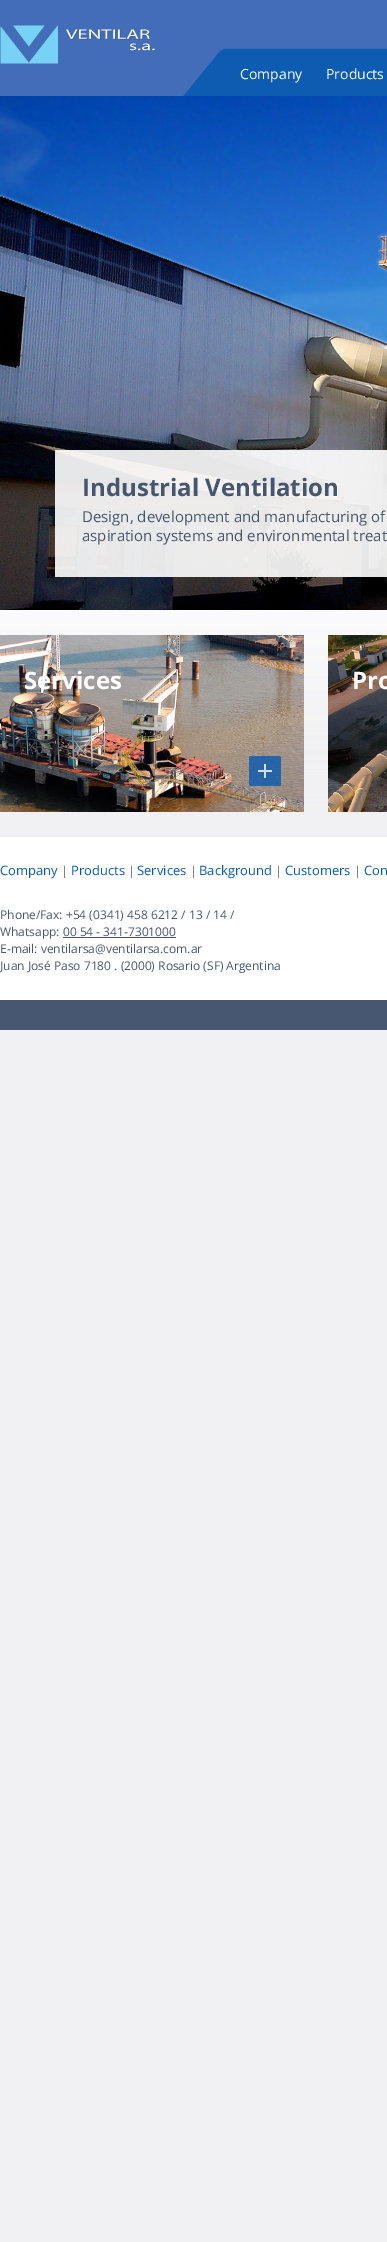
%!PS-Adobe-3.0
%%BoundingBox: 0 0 387 2242
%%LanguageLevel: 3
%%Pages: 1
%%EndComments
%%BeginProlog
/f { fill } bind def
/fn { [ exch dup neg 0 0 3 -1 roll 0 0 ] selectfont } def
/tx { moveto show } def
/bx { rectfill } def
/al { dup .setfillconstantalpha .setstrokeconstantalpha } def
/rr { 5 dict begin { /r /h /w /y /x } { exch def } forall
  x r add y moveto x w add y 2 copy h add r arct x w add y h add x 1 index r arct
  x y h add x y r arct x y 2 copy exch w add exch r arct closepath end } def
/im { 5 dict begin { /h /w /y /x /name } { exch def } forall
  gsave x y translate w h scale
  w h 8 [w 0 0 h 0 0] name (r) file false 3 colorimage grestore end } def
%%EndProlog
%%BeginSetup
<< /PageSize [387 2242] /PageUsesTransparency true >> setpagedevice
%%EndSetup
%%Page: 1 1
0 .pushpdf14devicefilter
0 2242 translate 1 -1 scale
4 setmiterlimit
0.945 0.945 0.953 setrgbcolor
0 0 387 2242 bx
0.263 0.427 0.725 setrgbcolor
0 0 387 96 bx
(image0.raw) 0 25 156 39 im
(image1.raw) 183 48 204 48 im
/OpenSans-Regular 14 fn
1 setgray
(Company) 240 79 tx
(Products) 326 79 tx
(image2.raw) 0 610 387 202 im
(image3.raw) 0 96 387 514 im
0.9 al
55 450 332 127 bx
/OpenSans-Bold 24 fn
1 al
0.278 0.337 0.439 setrgbcolor
(Industrial Ventilation) 82 496 tx
/OpenSans-Regular 15 fn
(Design, development and manufacturing of) 82 522 tx
(aspiration systems and environmental treat) 82 541 tx
(image4.raw) 0 635 304 177 im
/OpenSans-Bold 24 fn
1 setgray
(Services) 24 689 tx
0.8 al
0.039 0.349 0.69 setrgbcolor
249 756 32 30 2 rr f
1 al
(image5.raw) 258 764 14 14 im
(image6.raw) 328 635 59 177 im
1 setgray
(Pro) 352 689 tx
0 837 387 163 bx
0.278 0.341 0.443 setrgbcolor
0 1000 387 30 bx
/OpenSans-Regular 13 fn
0.039 0.349 0.69 setrgbcolor
(Company) 0 875 tx
/OpenSans-Regular 12 fn
0.278 0.337 0.439 setrgbcolor
(|) 61 875 tx
/OpenSans-Regular 13 fn
0.039 0.349 0.69 setrgbcolor
(Products) 71 875 tx
/OpenSans-Regular 12 fn
0.278 0.337 0.439 setrgbcolor
(|) 128 875 tx
/OpenSans-Regular 13 fn
0.039 0.349 0.69 setrgbcolor
(Services) 137 875 tx
/OpenSans-Regular 12 fn
0.278 0.337 0.439 setrgbcolor
(|) 190 875 tx
/OpenSans-Regular 13 fn
0.039 0.349 0.69 setrgbcolor
(Background) 199 875 tx
/OpenSans-Regular 12 fn
0.278 0.337 0.439 setrgbcolor
(|) 275 875 tx
/OpenSans-Regular 13 fn
0.039 0.349 0.69 setrgbcolor
(Customers) 285 875 tx
/OpenSans-Regular 12 fn
0.278 0.337 0.439 setrgbcolor
(|) 354 875 tx
/OpenSans-Regular 13 fn
0.039 0.349 0.69 setrgbcolor
(Con) 364 875 tx
/OpenSans-Regular 12 fn
0.278 0.337 0.439 setrgbcolor
(Phone/Fax: +54 \(0341\) 458 6212 / 13 / 14 /) 0 919 tx
(Whatsapp: 00 54 - 341-7301000) 0 936 tx
63 937 113 1 bx
(E-mail: ventilarsa@ventilarsa.com.ar) 0 953 tx
(Juan José Paso 7180 . \(2000\) Rosario \(SF\) Argentina) 0 970 tx
.poppdf14devicefilter showpage
%%EOF
